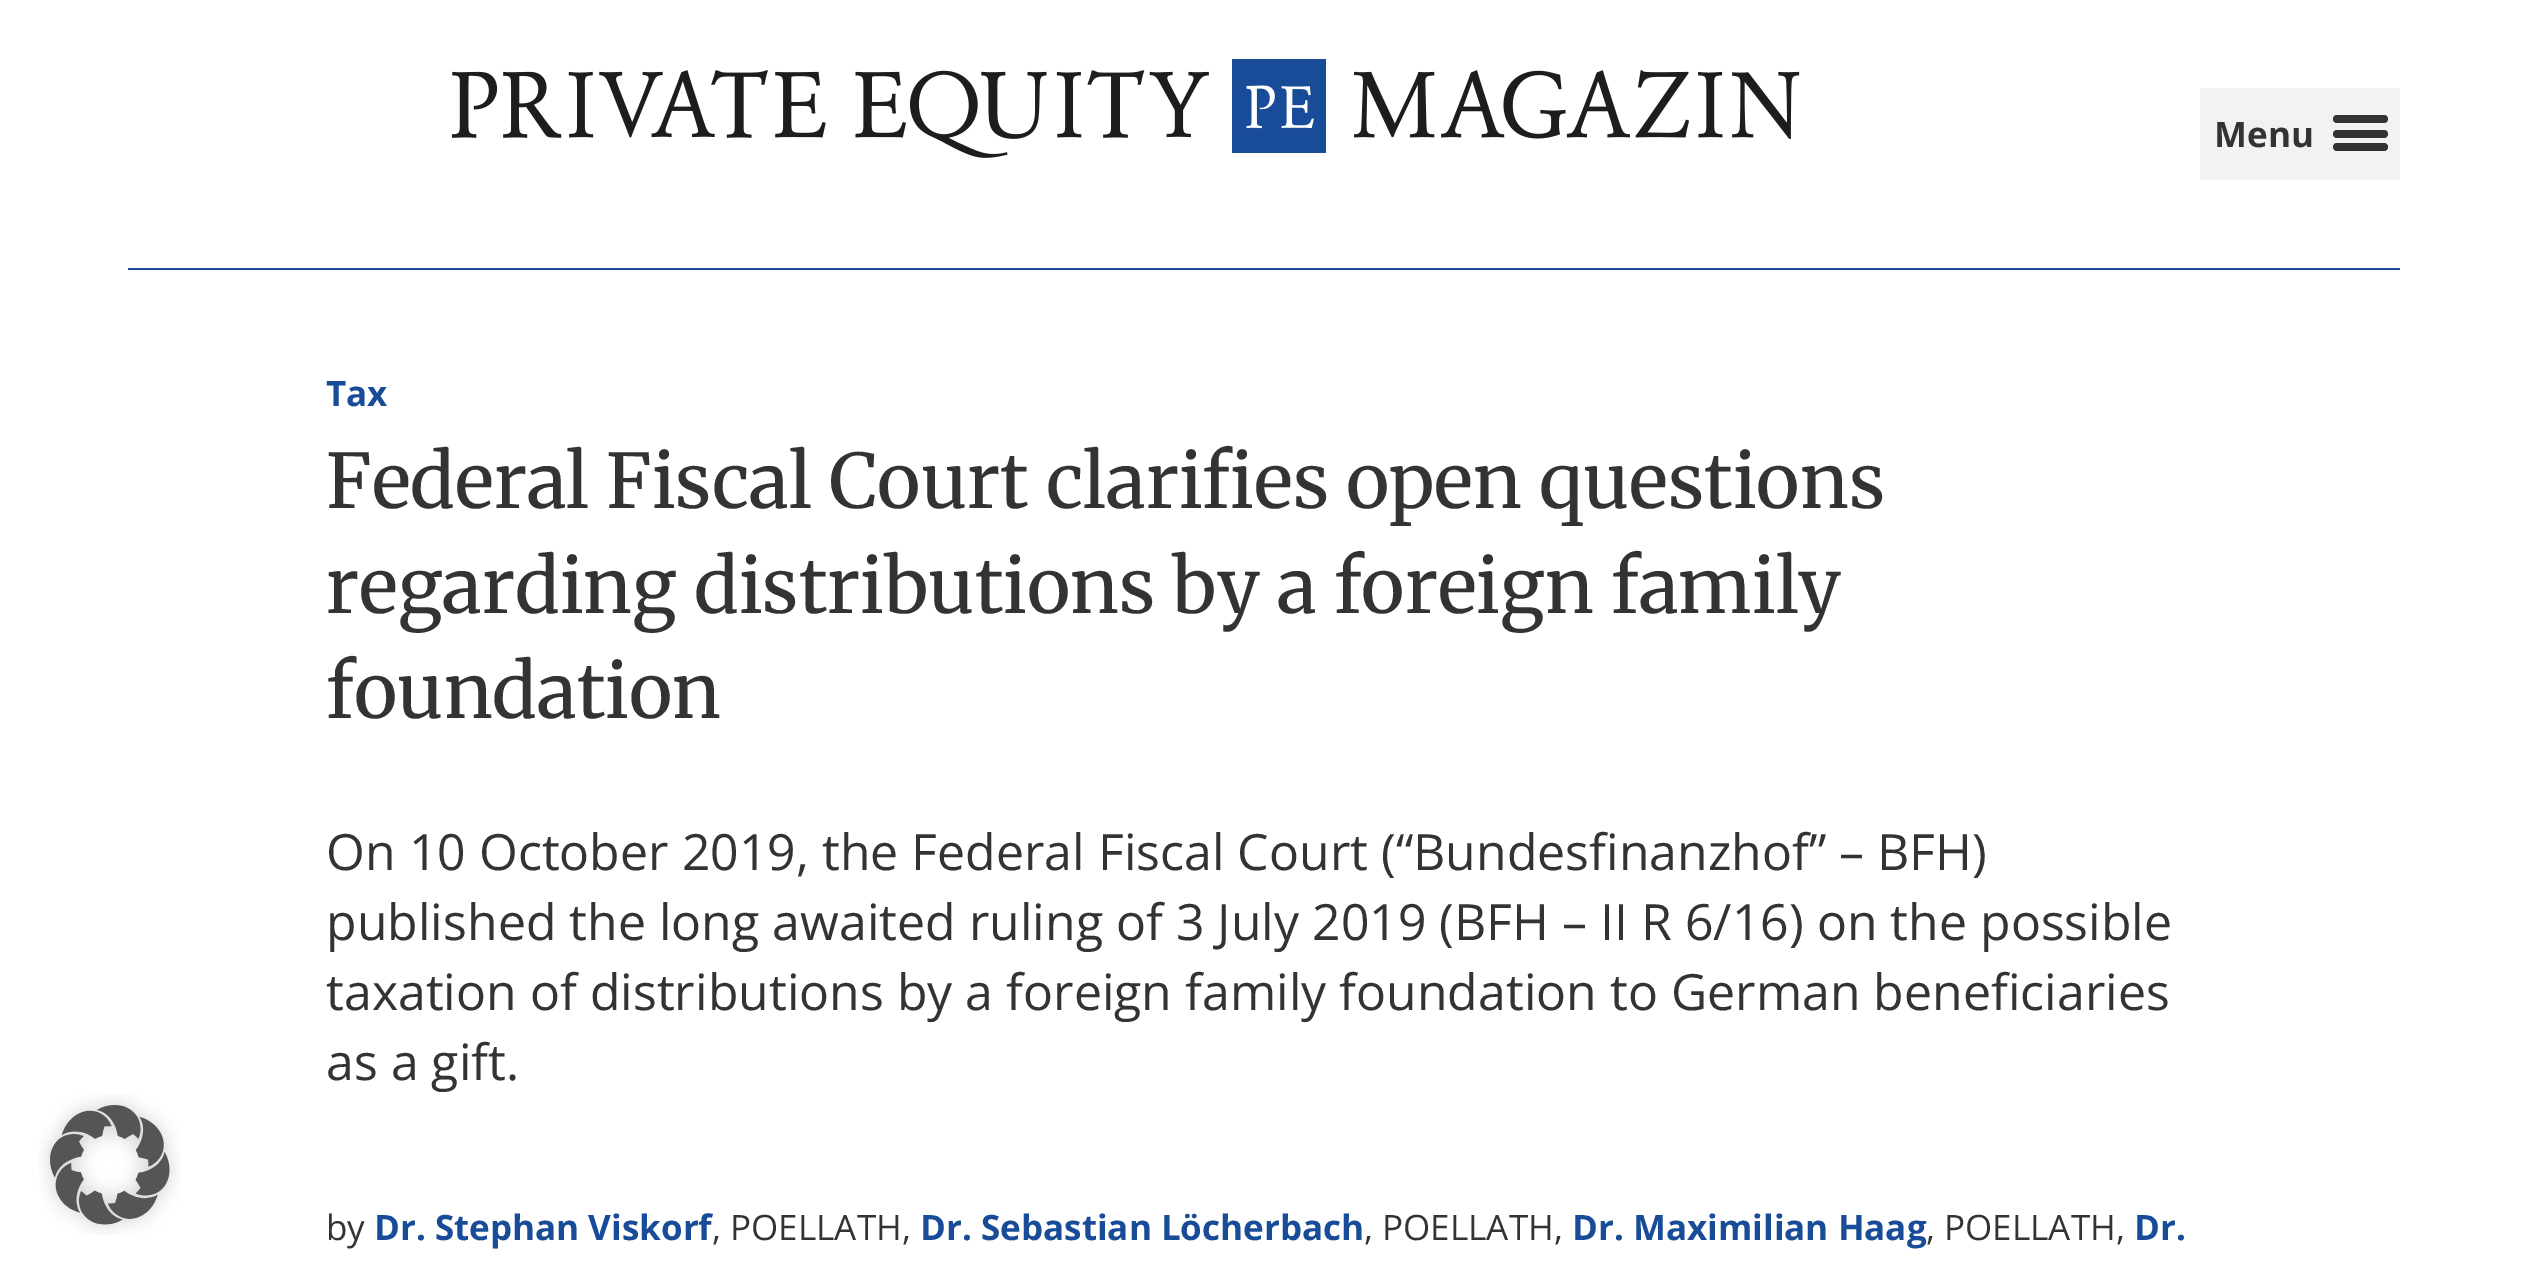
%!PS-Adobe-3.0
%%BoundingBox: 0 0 2526 1275
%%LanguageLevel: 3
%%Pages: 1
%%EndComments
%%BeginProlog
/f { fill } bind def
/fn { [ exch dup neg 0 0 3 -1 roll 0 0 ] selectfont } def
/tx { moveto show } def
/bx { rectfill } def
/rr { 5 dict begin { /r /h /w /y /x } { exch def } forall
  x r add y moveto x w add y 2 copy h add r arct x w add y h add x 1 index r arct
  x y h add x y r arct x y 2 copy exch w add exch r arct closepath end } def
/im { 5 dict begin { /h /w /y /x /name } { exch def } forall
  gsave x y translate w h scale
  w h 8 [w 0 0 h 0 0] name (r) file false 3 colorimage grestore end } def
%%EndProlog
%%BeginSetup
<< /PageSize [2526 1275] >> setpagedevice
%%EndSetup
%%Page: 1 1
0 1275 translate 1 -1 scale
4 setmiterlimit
1 setgray
0 0 2526 1275 bx
(image0.raw) 39 1094 141 141 im
(image1.raw) 451 59 1349 99 im
0.949 setgray
2200 88 200 92 bx
/OpenSans-Bold 35 fn
0.2 setgray
(Menu) 2214 147 tx
2333 130 55 8 4 rr f
2333 115 55 8 4 rr f
2333 143 55 8 4 rr f
0.098 0.298 0.596 setrgbcolor
128 268 2272 2 bx
(Tax) 326 406 tx
/Merriweather-Regular 75 fn
0.2 setgray
(Federal Fiscal Court clarifies open questions) 326 508 tx
(regarding distributions by a foreign family) 326 613 tx
(foundation) 326 718 tx
/OpenSans-Regular 50 fn
(On 10 October 2019, the Federal Fiscal Court \(“Bundesfinanzhof” – BFH\)) 326 870 tx
(published the long awaited ruling of 3 July 2019 \(BFH – II R 6/16\) on the possible) 326 940 tx
(taxation of distributions by a foreign family foundation to German beneficiaries) 326 1010 tx
(as a gift.) 326 1080 tx
/OpenSans-Regular 35 fn
(by) 326 1240 tx
/OpenSans-Bold 35 fn
0.098 0.298 0.596 setrgbcolor
(Dr. Stephan Viskorf) 374 1240 tx
/OpenSans-Regular 35 fn
0.2 setgray
(, POELLATH,) 712 1240 tx
/OpenSans-Bold 35 fn
0.098 0.298 0.596 setrgbcolor
(Dr. Sebastian Löcherbach) 920 1240 tx
/OpenSans-Regular 35 fn
0.2 setgray
(, POELLATH,) 1364 1240 tx
/OpenSans-Bold 35 fn
0.098 0.298 0.596 setrgbcolor
(Dr. Maximilian Haag) 1572 1240 tx
/OpenSans-Regular 35 fn
0.2 setgray
(, POELLATH,) 1926 1240 tx
/OpenSans-Bold 35 fn
0.098 0.298 0.596 setrgbcolor
(Dr.) 2134 1240 tx
showpage
%%EOF
